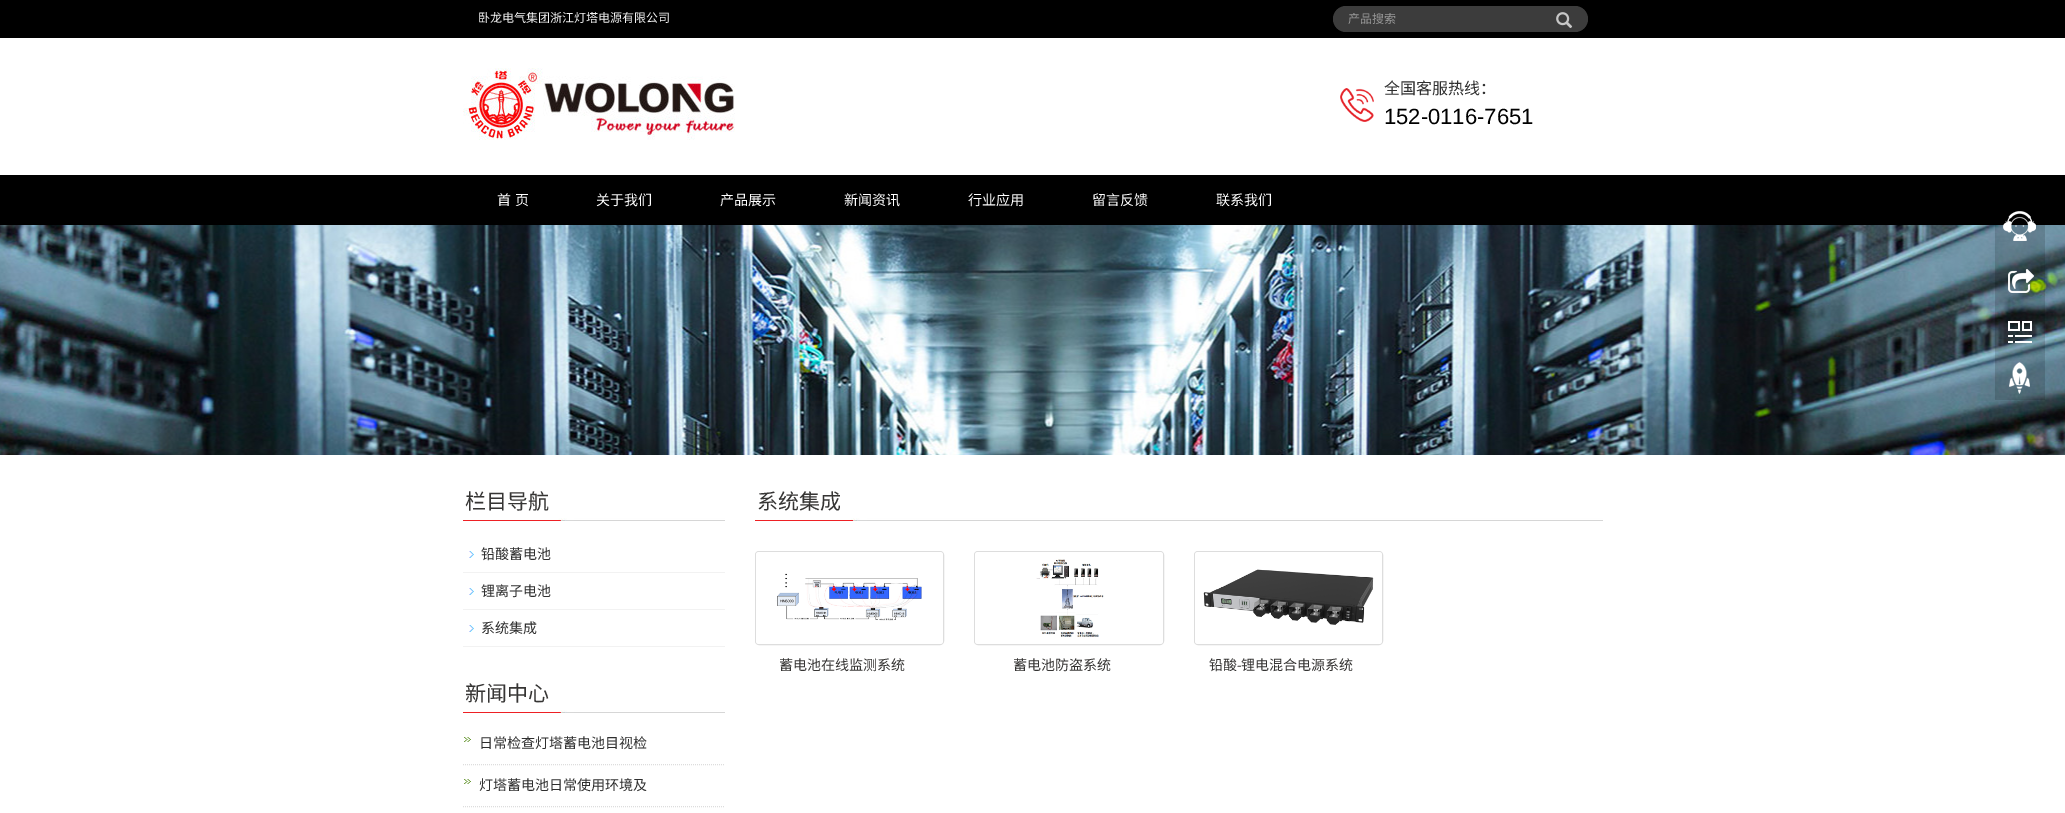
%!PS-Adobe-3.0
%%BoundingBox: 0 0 2065 813
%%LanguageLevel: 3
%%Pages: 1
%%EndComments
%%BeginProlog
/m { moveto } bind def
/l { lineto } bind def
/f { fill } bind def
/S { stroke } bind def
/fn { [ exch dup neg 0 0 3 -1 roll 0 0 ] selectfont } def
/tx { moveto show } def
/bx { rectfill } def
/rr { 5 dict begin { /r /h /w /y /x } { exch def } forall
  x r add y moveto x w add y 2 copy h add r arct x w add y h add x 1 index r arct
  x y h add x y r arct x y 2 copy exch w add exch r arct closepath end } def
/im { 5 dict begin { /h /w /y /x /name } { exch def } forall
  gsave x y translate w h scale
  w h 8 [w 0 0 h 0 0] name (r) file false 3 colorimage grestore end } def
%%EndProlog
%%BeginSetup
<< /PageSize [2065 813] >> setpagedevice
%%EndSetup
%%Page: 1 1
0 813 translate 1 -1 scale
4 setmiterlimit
1 setgray
0 0 2065 813 bx
0 setgray
0 0 2065 38 bx
/NotoSansCJKSC-Regular 12 fn
0.953 setgray
(卧龙电气集团浙江灯塔电源有限公司) 478 22 tx
0.235 setgray
1333 6 255 26 13 rr f
0.6 setgray
(产品搜索) 1348 23 tx
(image0.raw) 1556 12 17 16 im
(image1.raw) 463 68 272 72 im
(image2.raw) 1340 88 34 34 im
/NotoSansCJKSC-Regular 16 fn
0.184 setgray
(全国客服热线：) 1384 94 tx
/LiberationSans-Regular 22 fn
0 setgray
(152-0116-7651) 1384 124 tx
0 175 2065 50 bx
/NotoSansCJKSC-Regular 14 fn
1 setgray
497 205 m 1 0 32 (首 页) widthshow
(关于我们) 596 205 tx
(产品展示) 720 205 tx
(新闻资讯) 844 205 tx
(行业应用) 968 205 tx
(留言反馈) 1092 205 tx
(联系我们) 1216 205 tx
(image4.raw) 0 225 2065 230 im
(image3.raw) 1995 211 50 189 im
(image5.raw) 463 518 262 3 im
/NotoSansCJKSC-Regular 21 fn
0.212 0.208 0.204 setrgbcolor
(栏目导航) 465 509 tx
(image6.raw) 469 551 5 7 im
0.949 setgray
463 572 262 1 bx
/NotoSansCJKSC-Regular 14 fn
0.184 setgray
(铅酸蓄电池) 481 559 tx
(image6.raw) 469 588 5 7 im
0.949 setgray
463 609 262 1 bx
0.184 setgray
(锂离子电池) 481 596 tx
(image6.raw) 469 625 5 7 im
0.949 setgray
463 646 262 1 bx
0.184 setgray
(系统集成) 481 633 tx
(image5.raw) 463 710 262 3 im
/NotoSansCJKSC-Regular 21 fn
0.212 0.208 0.204 setrgbcolor
(新闻中心) 465 701 tx
(image7.raw) 464 737 7 5 im
0.867 setgray
[1 1] 0 setdash
463 764.5 m 725 764.5 l S
/NotoSansCJKSC-Regular 14 fn
0.184 setgray
(日常检查灯塔蓄电池目视检) 479 748 tx
(image7.raw) 464 779 7 5 im
0.867 setgray
463 806.5 m 725 806.5 l S
0.184 setgray
(灯塔蓄电池日常使用环境及) 479 790 tx
(image8.raw) 755 518 848 3 im
/NotoSansCJKSC-Regular 21 fn
0.212 0.208 0.204 setrgbcolor
(系统集成) 757 509 tx
0.867 setgray
[] 0 setdash
755.5 551.5 188 93 3.5 rr S
(image9.raw) 756 552 187 92 im
/NotoSansCJKSC-Regular 14 fn
0.212 0.208 0.204 setrgbcolor
(蓄电池在线监测系统) 779 670 tx
0.867 setgray
974.5 551.5 189 93 3.5 rr S
(image10.raw) 975 552 188 92 im
0.212 0.208 0.204 setrgbcolor
(蓄电池防盗系统) 1013 670 tx
0.867 setgray
1194.5 551.5 188 93 3.5 rr S
(image11.raw) 1195 552 187 92 im
0.212 0.208 0.204 setrgbcolor
(铅酸) 1209 670 tx
/LiberationSans-Regular 14 fn
(-) 1237 670 tx
/NotoSansCJKSC-Regular 14 fn
(锂电混合电源系统) 1241 670 tx
showpage
%%EOF
